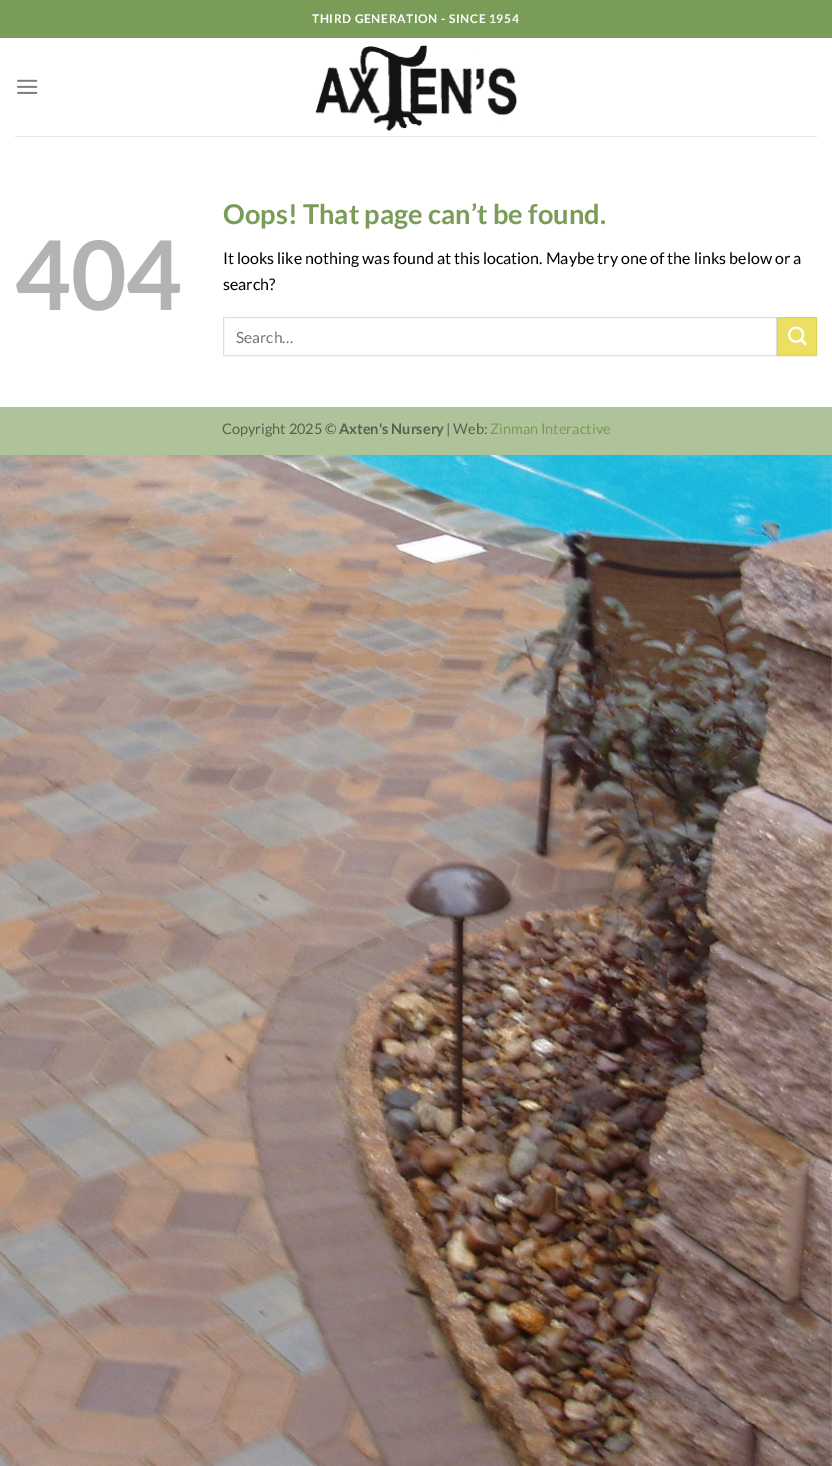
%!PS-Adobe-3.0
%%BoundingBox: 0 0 832 1466
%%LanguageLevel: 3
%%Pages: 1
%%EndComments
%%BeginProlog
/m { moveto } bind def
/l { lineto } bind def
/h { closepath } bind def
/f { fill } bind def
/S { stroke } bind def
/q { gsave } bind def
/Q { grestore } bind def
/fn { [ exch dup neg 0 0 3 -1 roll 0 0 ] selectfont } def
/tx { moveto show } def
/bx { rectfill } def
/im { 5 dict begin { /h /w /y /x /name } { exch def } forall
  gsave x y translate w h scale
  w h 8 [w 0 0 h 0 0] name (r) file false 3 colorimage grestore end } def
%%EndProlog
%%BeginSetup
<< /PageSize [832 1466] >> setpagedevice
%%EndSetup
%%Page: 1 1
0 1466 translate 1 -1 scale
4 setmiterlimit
1 setgray
0 0 832 1466 bx
(image0.raw) 0 455 832 1011 im
0.478 0.612 0.349 setrgbcolor
0 0 832 38 bx
/Lato-Bold 12 fn
1 setgray
312 23 m 0.6 0 (THIRD GENERATION - SINCE 1954) ashow
(image1.raw) 17 79 21 15 im
(image2.raw) 315 45 203 87 im
0.902 setgray
15 136 802 1 bx
/Lato-Bold 96 fn
0.702 setgray
(404) 15 310 tx
/Lato-Bold 27.25 fn
0.478 0.612 0.349 setrgbcolor
(Oops! That page can’t be found.) 223 224 tx
/Lato-Regular 16 fn
0 setgray
(It looks like nothing was found at this location. Maybe try one of the links below or a) 223 264 tx
(search?) 223 290 tx
0.867 setgray
223.5 317.5 553 38 rectstroke
/Lato-Regular 15.5 fn
0.459 setgray
(Search…) 236 343 tx
0.929 0.875 0.384 setrgbcolor
777.5 317.5 m 816.5 317.5 l 816.5 355.5 l 777.5 355.5 l h q f Q
0.882 0.831 0.365 setrgbcolor
S
(image3.raw) 788 326 19 20 im
0.682 0.765 0.604 setrgbcolor
0 407 832 48 bx
/Lato-Regular 14.5 fn
0.341 0.384 0.302 setrgbcolor
(Copyright 2025 ©) 222 434 tx
/Lato-Bold 14.5 fn
(Axten's Nursery) 339 434 tx
/Lato-Regular 14.5 fn
(| Web:) 446 434 tx
0.478 0.612 0.349 setrgbcolor
(Zinman Interactive) 490 434 tx
showpage
%%EOF
